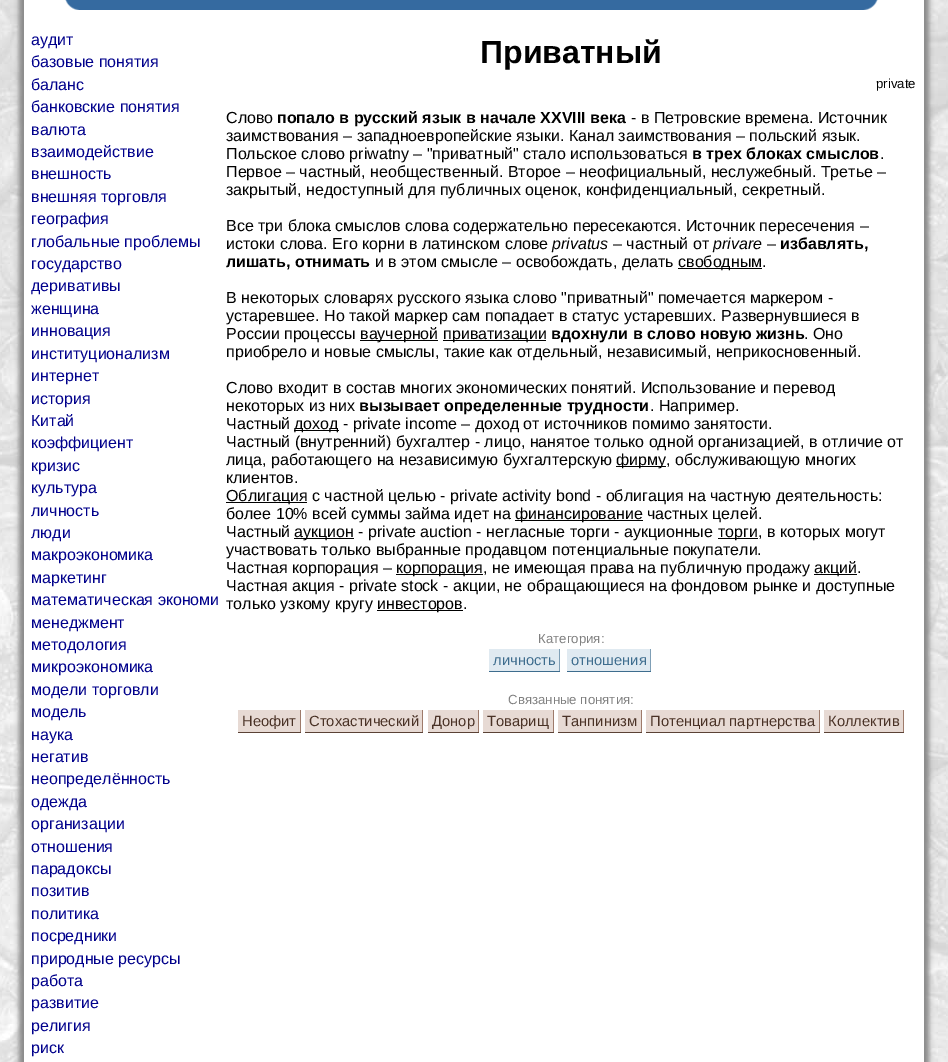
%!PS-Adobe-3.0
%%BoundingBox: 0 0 948 1062
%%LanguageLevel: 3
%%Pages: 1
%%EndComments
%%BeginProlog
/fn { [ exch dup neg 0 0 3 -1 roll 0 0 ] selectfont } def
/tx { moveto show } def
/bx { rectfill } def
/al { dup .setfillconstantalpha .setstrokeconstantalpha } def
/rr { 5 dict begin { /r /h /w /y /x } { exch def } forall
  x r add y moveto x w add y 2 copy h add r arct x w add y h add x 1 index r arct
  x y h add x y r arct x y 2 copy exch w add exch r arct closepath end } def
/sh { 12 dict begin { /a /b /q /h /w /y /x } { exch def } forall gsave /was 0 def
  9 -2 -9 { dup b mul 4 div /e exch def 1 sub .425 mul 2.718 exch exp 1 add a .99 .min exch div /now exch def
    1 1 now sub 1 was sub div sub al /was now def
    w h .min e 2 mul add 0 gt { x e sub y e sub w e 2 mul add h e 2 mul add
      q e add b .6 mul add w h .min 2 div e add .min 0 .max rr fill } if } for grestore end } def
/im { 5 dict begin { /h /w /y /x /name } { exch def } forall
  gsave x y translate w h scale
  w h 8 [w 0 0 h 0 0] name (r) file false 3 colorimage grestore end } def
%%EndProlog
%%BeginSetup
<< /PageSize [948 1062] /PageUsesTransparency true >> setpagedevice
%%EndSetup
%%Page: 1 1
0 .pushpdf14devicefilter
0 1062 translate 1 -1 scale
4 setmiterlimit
1 setgray
0 0 948 1062 bx
(image0.raw) 0 0 948 1062 im
0.533 setgray
19 -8 900 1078 0 2.5 1 sh
29 -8 900 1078 0 2.5 1 sh
1 setgray
24 0 900 1062 bx
0.208 0.416 0.627 setrgbcolor
79 0 784 10 bx
(image1.raw) 65 0 14 10 im
(image2.raw) 863 0 15 10 im
/LiberationSans-Regular 16 fn
0 0 0.545 setrgbcolor
(аудит) 31 45 tx
(базовые понятия) 31 67 tx
(баланс) 31 90 tx
(банковские понятия) 31 112 tx
(валюта) 31 135 tx
(взаимодействие) 31 157 tx
(внешность) 31 179 tx
(внешняя торговля) 31 202 tx
(география) 31 224 tx
(глобальные проблемы) 31 247 tx
(государство) 31 269 tx
(деривативы) 31 291 tx
(женщина) 31 314 tx
(инновация) 31 336 tx
(институционализм) 31 359 tx
(интернет) 31 381 tx
(история) 31 404 tx
(Китай) 31 426 tx
(коэффициент) 31 448 tx
(кризис) 31 471 tx
(культура) 31 493 tx
(личность) 31 516 tx
(люди) 31 538 tx
(макроэкономика) 31 560 tx
(маркетинг) 31 583 tx
(математическая экономи) 31 605 tx
(менеджмент) 31 628 tx
(методология) 31 650 tx
(микроэкономика) 31 672 tx
(модели торговли) 31 695 tx
(модель) 31 717 tx
(наука) 31 740 tx
(негатив) 31 762 tx
(неопределённость) 31 784 tx
(одежда) 31 807 tx
(организации) 31 829 tx
(отношения) 31 852 tx
(парадоксы) 31 874 tx
(позитив) 31 896 tx
(политика) 31 919 tx
(посредники) 31 941 tx
(природные ресурсы) 31 964 tx
(работа) 31 986 tx
(развитие) 31 1008 tx
(религия) 31 1031 tx
(риск) 31 1053 tx
/LiberationSans-Bold 32 fn
0 setgray
(Приватный) 480 63 tx
/LiberationSans-Regular 13.25 fn
(private) 876 88 tx
/LiberationSans-Regular 16 fn
(Слово) 226 123 tx
/LiberationSans-Bold 16 fn
(попало в русский язык в начале XXVIII века) 277 123 tx
/LiberationSans-Regular 16 fn
(- в Петровские времена. Источник) 631 123 tx
(заимствования – западноевропейские языки. Канал заимствования – польский язык.) 226 141 tx
(Польское слово priwatny – "приватный" стало использоваться) 226 159 tx
/LiberationSans-Bold 16 fn
(в трех блоках смыслов) 692 159 tx
/LiberationSans-Regular 16 fn
(.) 880 159 tx
(Первое – частный, необщественный. Второе – неофициальный, неслужебный. Третье –) 226 177 tx
(закрытый, недоступный для публичных оценок, конфиденциальный, секретный.) 226 195 tx
(Все три блока смыслов слова содержательно пересекаются. Источник пересечения –) 226 231 tx
(истоки слова. Его корни в латинском слове) 226 249 tx
/LiberationSans-Italic 16 fn
(privatus) 552 249 tx
/LiberationSans-Regular 16 fn
(– частный от) 613 249 tx
/LiberationSans-Italic 16 fn
(privare) 713 249 tx
/LiberationSans-Regular 16 fn
(–) 767 249 tx
/LiberationSans-Bold 16 fn
(избавлять,) 780 249 tx
(лишать, отнимать) 226 267 tx
/LiberationSans-Regular 16 fn
(и в этом смысле – освобождать, делать) 375 267 tx
678 268 84 1 bx
(свободным.) 678 267 tx
(В некоторых словарях русского языка слово "приватный" помечается маркером -) 226 303 tx
(устаревшее. Но такой маркер сам попадает в статус устаревших. Развернувшиеся в) 226 321 tx
(России процессы) 226 339 tx
360 340 78 1 bx
(ваучерной) 360 339 tx
443 340 103 1 bx
(приватизации) 443 339 tx
/LiberationSans-Bold 16 fn
(вдохнули в слово новую жизнь) 551 339 tx
/LiberationSans-Regular 16 fn
(. Оно) 804 339 tx
(приобрело и новые смыслы, такие как отдельный, независимый, неприкосновенный.) 226 357 tx
(Слово входит в состав многих экономических понятий. Использование и перевод) 226 393 tx
(некоторых из них) 226 411 tx
/LiberationSans-Bold 16 fn
(вызывает определенные трудности) 359 411 tx
/LiberationSans-Regular 16 fn
(. Например.) 650 411 tx
(Частный) 226 429 tx
294 430 45 1 bx
(доход - private income – доход от источников помимо занятости.) 294 429 tx
(Частный \(внутренний\) бухгалтер - лицо, нанятое только одной организацией, в отличие от) 226 447 tx
(лица, работающего на независимую бухгалтерскую) 226 465 tx
616 466 50 1 bx
(фирму, обслуживающую многих) 616 465 tx
(клиентов.) 226 483 tx
226 502 81 1 bx
(Облигация с частной целью - private activity bond - облигация на частную деятельность:) 226 501 tx
(более 10% всей суммы займа идет на) 226 519 tx
515 520 128 1 bx
(финансирование частных целей.) 515 519 tx
(Частный) 226 537 tx
294 538 60 1 bx
(аукцион - private auction - негласные торги - аукционные) 294 537 tx
718 538 40 1 bx
(торги, в которых могут) 718 537 tx
(участвовать только выбранные продавцом потенциальные покупатели.) 226 555 tx
(Частная корпорация –) 226 573 tx
396 574 87 1 bx
(корпорация, не имеющая права на публичную продажу) 396 573 tx
814 574 43 1 bx
(акций.) 814 573 tx
(Частная акция - private stock - акции, не обращающиеся на фондовом рынке и доступные) 226 591 tx
(только узкому кругу) 226 609 tx
377 610 86 1 bx
(инвесторов.) 377 609 tx
/LiberationSans-Regular 13.25 fn
0.502 setgray
(Категория:) 538 643 tx
0.878 0.918 0.945 setrgbcolor
489 649 70 22 bx
/LiberationSans-Regular 14.75 fn
0.243 0.427 0.557 setrgbcolor
(личность) 493 665 tx
0.498 0.624 0.714 setrgbcolor
559 649 1 23 bx
0.243 0.427 0.557 setrgbcolor
489 671 71 1 bx
0.878 0.918 0.945 setrgbcolor
567 649 83 22 bx
0.243 0.427 0.557 setrgbcolor
(отношения) 571 665 tx
0.498 0.624 0.714 setrgbcolor
650 649 1 23 bx
0.243 0.427 0.557 setrgbcolor
567 671 84 1 bx
/LiberationSans-Regular 13.25 fn
0.502 setgray
(Связанные понятия:) 508 704 tx
0.906 0.855 0.831 setrgbcolor
238 710 62 22 bx
/LiberationSans-Regular 14.75 fn
0.29 0.196 0.149 setrgbcolor
(Неофит) 242 726 tx
0.62 0.482 0.42 setrgbcolor
300 710 1 23 bx
0.357 0.259 0.212 setrgbcolor
238 732 63 1 bx
0.906 0.855 0.831 setrgbcolor
305 710 117 22 bx
0.29 0.196 0.149 setrgbcolor
(Стохастический) 309 726 tx
0.62 0.482 0.42 setrgbcolor
422 710 1 23 bx
0.357 0.259 0.212 setrgbcolor
305 732 118 1 bx
0.906 0.855 0.831 setrgbcolor
428 710 50 22 bx
0.29 0.196 0.149 setrgbcolor
(Донор) 432 726 tx
0.62 0.482 0.42 setrgbcolor
478 710 1 23 bx
0.357 0.259 0.212 setrgbcolor
428 732 51 1 bx
0.906 0.855 0.831 setrgbcolor
483 710 70 22 bx
0.29 0.196 0.149 setrgbcolor
(Товарищ) 487 726 tx
0.62 0.482 0.42 setrgbcolor
553 710 1 23 bx
0.357 0.259 0.212 setrgbcolor
483 732 71 1 bx
0.906 0.855 0.831 setrgbcolor
558 710 83 22 bx
0.29 0.196 0.149 setrgbcolor
(Танпинизм) 562 726 tx
0.62 0.482 0.42 setrgbcolor
641 710 1 23 bx
0.357 0.259 0.212 setrgbcolor
558 732 84 1 bx
0.906 0.855 0.831 setrgbcolor
646 710 173 22 bx
0.29 0.196 0.149 setrgbcolor
(Потенциал партнерства) 650 726 tx
0.62 0.482 0.42 setrgbcolor
819 710 1 23 bx
0.357 0.259 0.212 setrgbcolor
646 732 174 1 bx
0.906 0.855 0.831 setrgbcolor
824 710 79 22 bx
0.29 0.196 0.149 setrgbcolor
(Коллектив) 828 726 tx
0.62 0.482 0.42 setrgbcolor
903 710 1 23 bx
0.357 0.259 0.212 setrgbcolor
824 732 80 1 bx
.poppdf14devicefilter showpage
%%EOF
